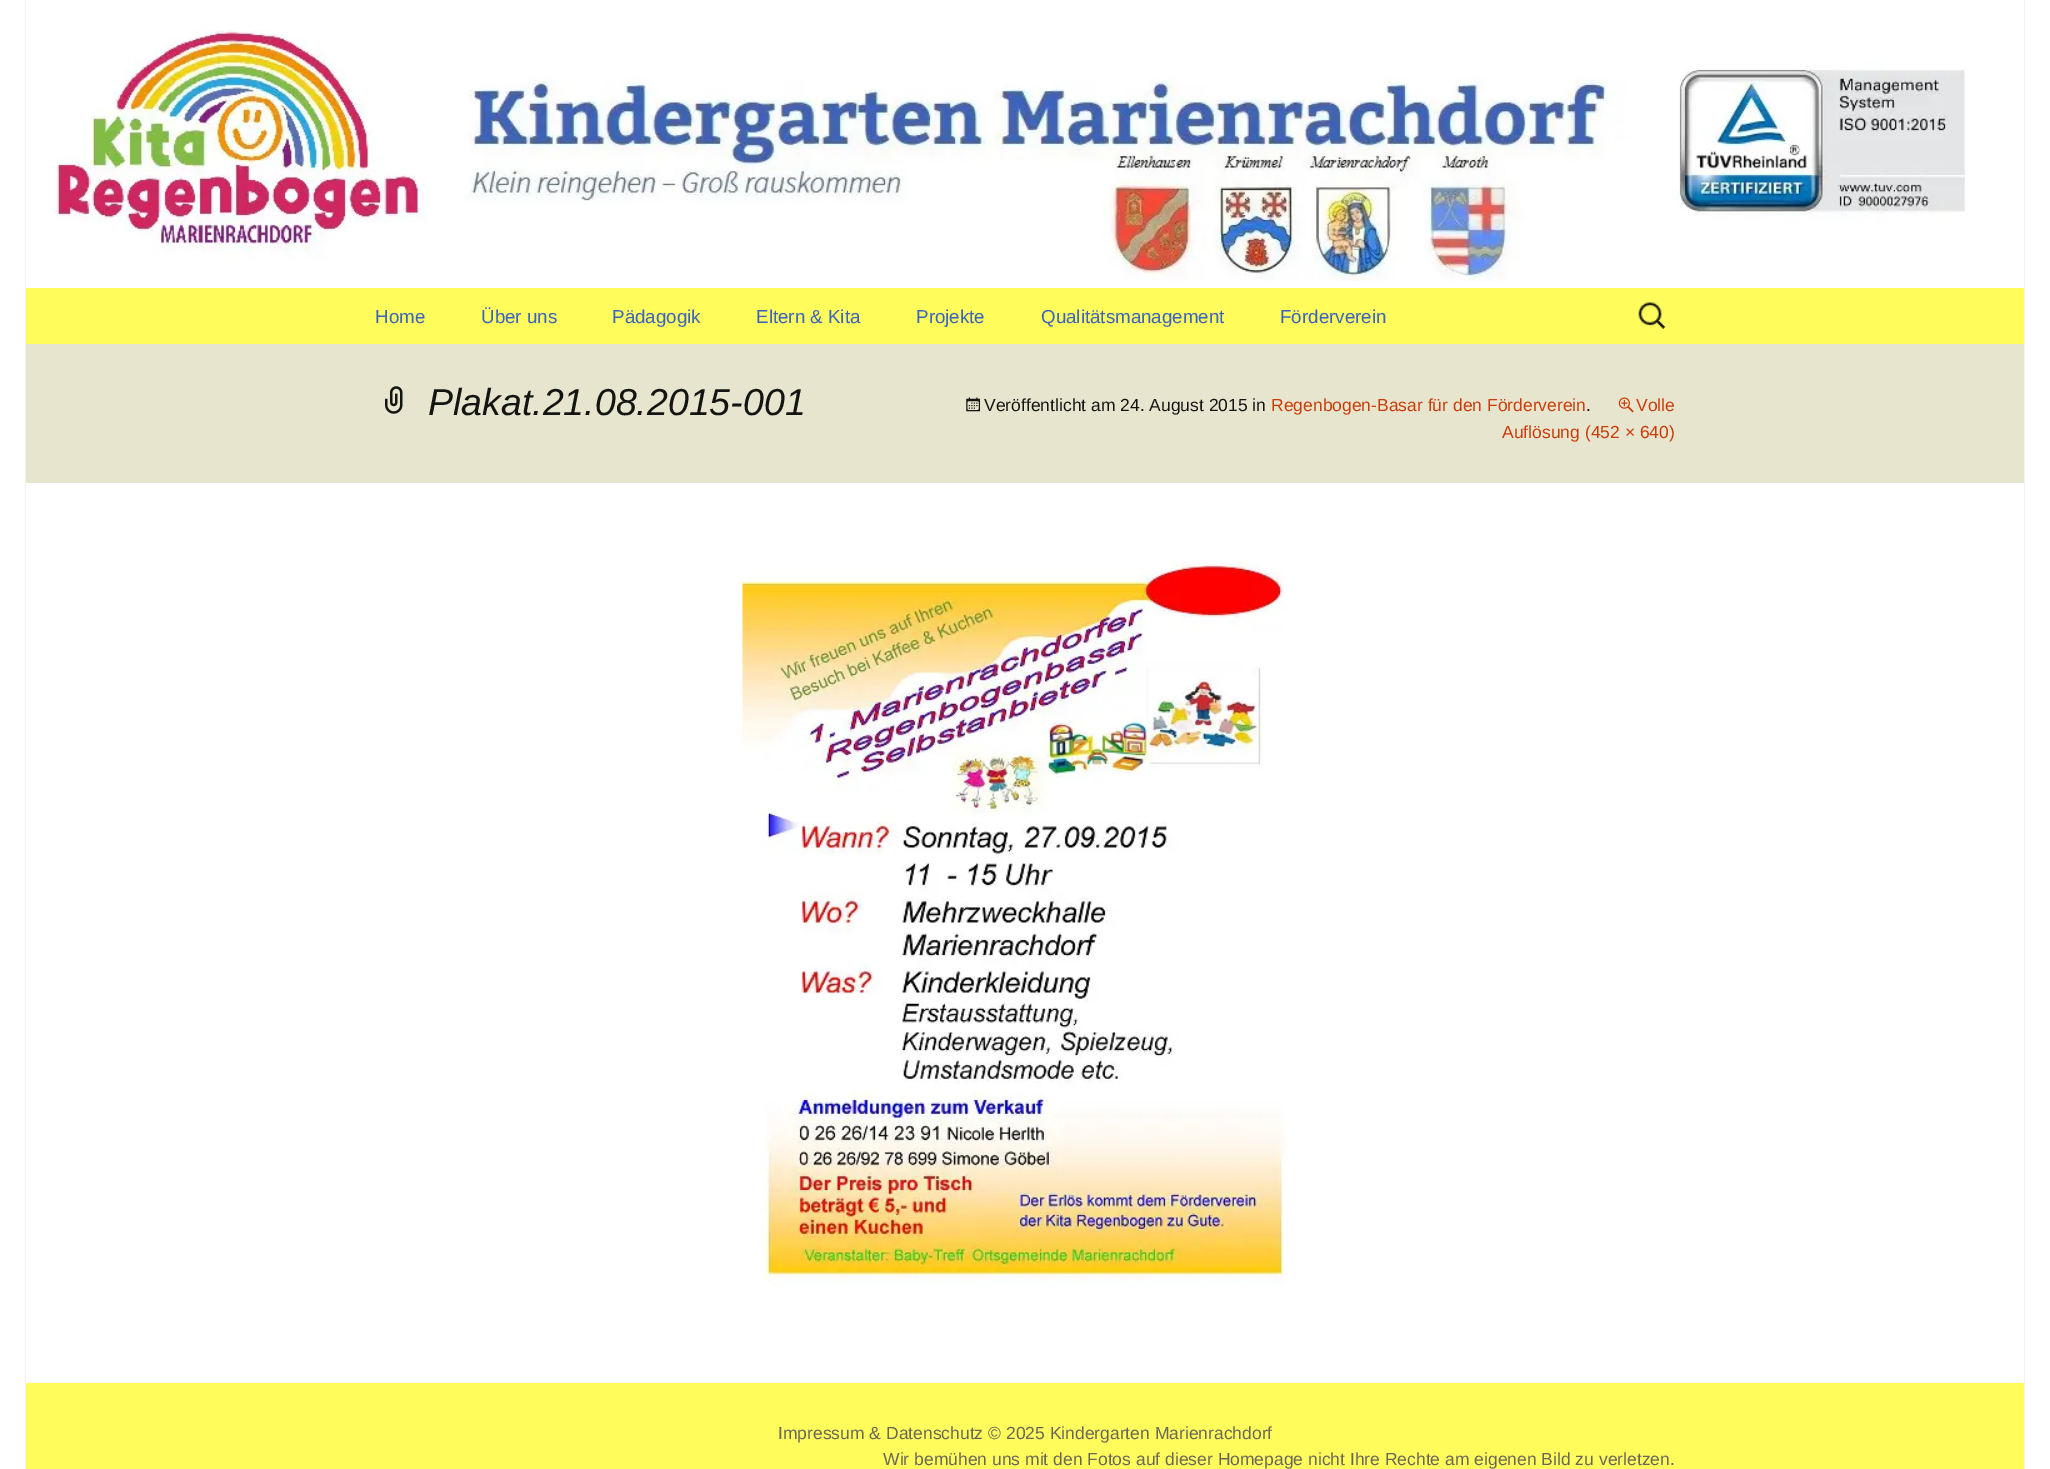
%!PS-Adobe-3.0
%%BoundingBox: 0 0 2050 1469
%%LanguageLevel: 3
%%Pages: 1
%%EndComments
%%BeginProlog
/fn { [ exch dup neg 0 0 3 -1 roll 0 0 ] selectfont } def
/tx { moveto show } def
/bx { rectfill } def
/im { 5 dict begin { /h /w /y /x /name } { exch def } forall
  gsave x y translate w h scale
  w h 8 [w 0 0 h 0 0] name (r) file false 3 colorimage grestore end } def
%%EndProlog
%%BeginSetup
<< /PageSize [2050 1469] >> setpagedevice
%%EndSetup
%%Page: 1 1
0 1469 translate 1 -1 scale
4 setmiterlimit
1 setgray
0 0 2050 1469 bx
0.949 setgray
2024 0 1 1469 bx
25 0 1 1469 bx
(image0.raw) 55 30 1910 251 im
1 0.988 0.361 setrgbcolor
26 288 1998 56 bx
/LiberationSans-Regular 18.75 fn
0.235 0.392 0.745 setrgbcolor
(Home) 375 323 tx
(Über uns) 481 323 tx
(Pädagogik) 612 323 tx
(Eltern & Kita) 756 323 tx
(Projekte) 916 323 tx
(Qualitätsmanagement) 1041 323 tx
(Förderverein) 1280 323 tx
(image1.raw) 1638 302 28 27 im
0.91 0.898 0.808 setrgbcolor
26 344 1998 139 bx
(image2.raw) 385 386 18 28 im
/LiberationSans-Italic 37.5 fn
0.078 0.078 0.071 setrgbcolor
(Plakat.21.08.2015-001) 428 415 tx
(image3.raw) 966 397 14 15 im
/LiberationSans-Regular 17.5 fn
(Veröffentlicht am 24. August 2015 in) 984 411 tx
0.792 0.235 0.031 setrgbcolor
(Regenbogen-Basar für den Förderverein) 1271 411 tx
0.078 0.078 0.071 setrgbcolor
(.) 1586 411 tx
(image4.raw) 1618 397 16 16 im
0.792 0.235 0.031 setrgbcolor
(Volle) 1636 411 tx
(Auflösung \(452 × 640\)) 1502 438 tx
(image5.raw) 742 562 545 725 im
1 0.988 0.361 setrgbcolor
26 1383 1998 86 bx
0.408 0.404 0.345 setrgbcolor
(Impressum & Datenschutz © 2025 Kindergarten Marienrachdorf) 778 1439 tx
(Wir bemühen uns mit den Fotos auf dieser Homepage nicht Ihre Rechte am eigenen Bild zu verletzen.) 883 1465 tx
showpage
%%EOF
